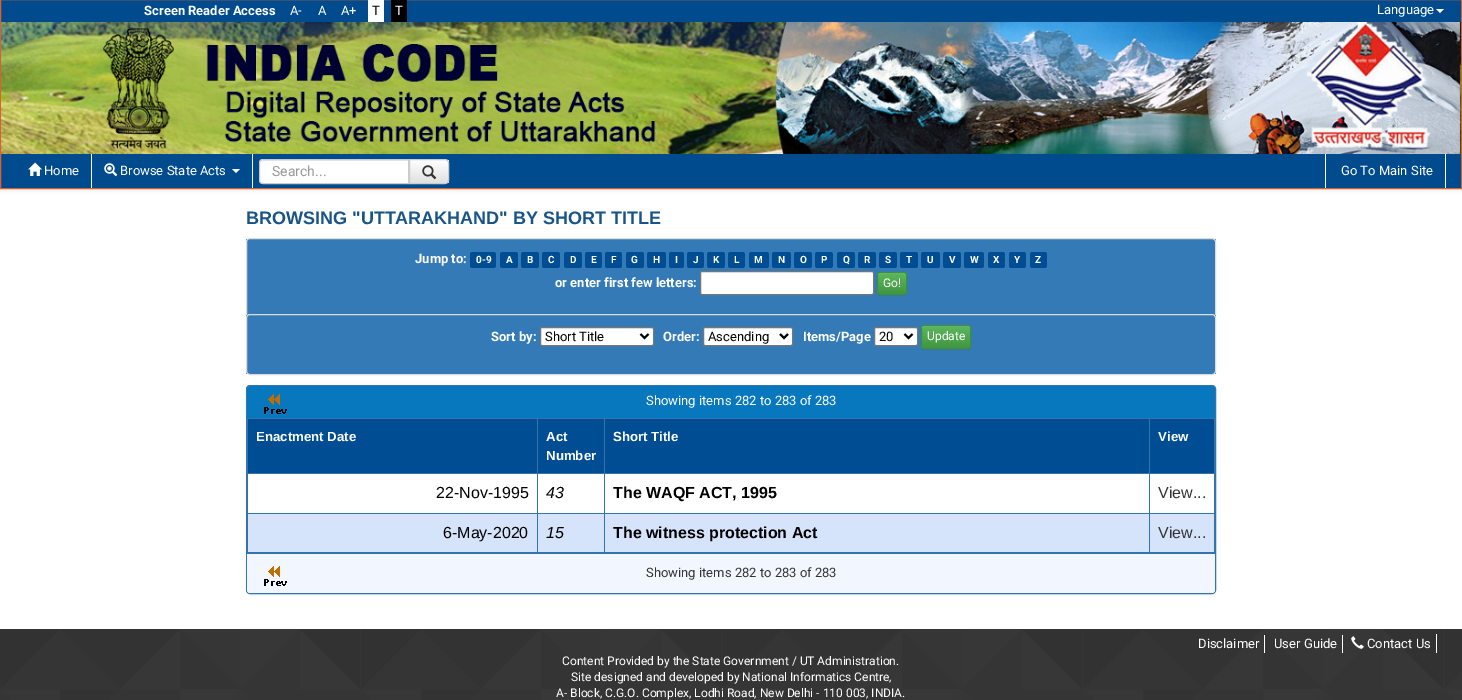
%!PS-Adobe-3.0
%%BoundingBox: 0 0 1462 700
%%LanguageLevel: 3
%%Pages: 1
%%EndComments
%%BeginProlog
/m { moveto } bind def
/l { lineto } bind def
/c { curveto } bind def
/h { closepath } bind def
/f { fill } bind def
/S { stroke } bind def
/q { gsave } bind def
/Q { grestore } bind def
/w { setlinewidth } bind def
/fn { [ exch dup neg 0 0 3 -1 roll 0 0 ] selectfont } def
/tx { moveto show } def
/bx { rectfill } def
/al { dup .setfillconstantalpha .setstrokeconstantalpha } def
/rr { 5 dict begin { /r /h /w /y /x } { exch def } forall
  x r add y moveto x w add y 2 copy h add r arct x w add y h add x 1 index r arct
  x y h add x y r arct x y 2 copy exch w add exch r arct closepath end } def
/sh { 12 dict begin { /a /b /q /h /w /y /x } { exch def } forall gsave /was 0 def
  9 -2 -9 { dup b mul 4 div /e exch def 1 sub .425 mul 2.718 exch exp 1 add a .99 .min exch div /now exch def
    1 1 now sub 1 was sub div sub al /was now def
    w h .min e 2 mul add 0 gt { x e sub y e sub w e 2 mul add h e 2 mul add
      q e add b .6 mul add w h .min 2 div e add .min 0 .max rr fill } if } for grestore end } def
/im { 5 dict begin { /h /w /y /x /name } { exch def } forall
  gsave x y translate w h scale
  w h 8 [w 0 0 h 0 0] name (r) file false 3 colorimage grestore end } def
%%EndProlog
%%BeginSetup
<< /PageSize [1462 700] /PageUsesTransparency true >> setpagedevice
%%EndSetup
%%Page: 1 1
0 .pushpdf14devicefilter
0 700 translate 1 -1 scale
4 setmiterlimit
1 setgray
0 0 1462 700 bx
0 setgray
0 -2 1462 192 0 2.5 0.07 sh
0 0.294 0.557 setrgbcolor
0.5 -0.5 m 1461.5 -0.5 l 1461.5 188.5 l 0.5 188.5 l h q f Q
0.859 0.376 0.188 setrgbcolor
S
/Roboto-Bold 13 fn
1 setgray
(Screen Reader Access) 144 15 tx
/Roboto-Regular 13 fn
(A-) 290 15 tx
(A) 318 15 tx
(A+) 341 15 tx
368 0 16 22 bx
0 setgray
(T) 372 15 tx
391 0 16 22 bx
1 setgray
(T) 395 15 tx
(Language) 1377 14 tx
1436 9 m 1444 9 l 1440 13 l h f
(image0.raw) 1 22 1460 132 im
1 0.945 0.925 setrgbcolor
91 154 1 34 bx
(image1.raw) 28 162 14 14 im
1 setgray
(Home) 44 175 tx
1 0.945 0.925 setrgbcolor
252 154 1 34 bx
(image2.raw) 104 163 14 14 im
1 setgray
(Browse State Acts) 120 175 tx
232 169 m 240 169 l 236 173 l h f
263 159 m 409 159 l 409 184 l 263 184 l 261 184 259 182 259 180 c 259 163 l 259 161 261 159 263 159 c h f
0.925 setgray
263 161 m 408 161 l 408 160 l 262 160 l 260 161 260 162 260 163 c 260 162 261 161 263 161 c h f
0.8 setgray
263 159.5 m 408.5 159.5 l 408.5 183.5 l 263 183.5 l 261 183.5 259.5 182 259.5 180 c 259.5 163 l 259.5 161 261 159.5 263 159.5 c h S
/Roboto-Regular 14 fn
0.6 setgray
(Search...) 272 176 tx
q
409 159 m 445 159 l 447 159 449 161 449 163 c 449 180 l 449 182 447 184 445 184 c 409 184 l h clip newpath
q 410 160 m 449 160 l 449 183 l 410 183 l h clip newpath
<< /ShadingType 2 /ColorSpace /DeviceRGB /Coords [429 160 429 183] /Extend [true true] /Function << /FunctionType 2 /Domain [0 1] /C0 [1 1 1] /C1 [0.878 0.878 0.878] /N 1 >> >> shfill Q
Q
0.8 setgray
409.5 159.5 m 445 159.5 l 447 159.5 448.5 161 448.5 163 c 448.5 180 l 448.5 182 447 183.5 445 183.5 c 409.5 183.5 l h S
(image3.raw) 422 165 15 15 im
1 setgray
1445 154 1 34 bx
1325 154 1 34 bx
/Roboto-Regular 13 fn
(Go To Main Site) 1341 175 tx
/LiberationSans-Bold 18 fn
0.098 0.329 0.533 setrgbcolor
(BROWSING "UTTARAKHAND" BY SHORT TITLE) 246 224 tx
q
246 238 970 81 4 rr clip newpath
0.2 0.478 0.718 setrgbcolor
246 239 970 79 bx
Q
0.863 setgray
246.5 238.5 969 80 3.5 rr S
/Roboto-Bold 13 fn
1 setgray
(Jump to:) 415 263 tx
0 0.302 0.576 setrgbcolor
470 252 26 16 2.5 rr f
/Roboto-Bold 10 fn
1 setgray
(0-9) 476 263 tx
0 0.302 0.576 setrgbcolor
500 252 18 16 2.5 rr f
1 setgray
(A) 506 263 tx
0 0.302 0.576 setrgbcolor
521 252 18 16 2.5 rr f
1 setgray
(B) 527 263 tx
0 0.302 0.576 setrgbcolor
542 252 18 16 2.5 rr f
1 setgray
(C) 548 263 tx
0 0.302 0.576 setrgbcolor
564 252 18 16 2.5 rr f
1 setgray
(D) 570 263 tx
0 0.302 0.576 setrgbcolor
585 252 17 16 2.5 rr f
1 setgray
(E) 591 263 tx
0 0.302 0.576 setrgbcolor
605 252 17 16 2.5 rr f
1 setgray
(F) 611 263 tx
0 0.302 0.576 setrgbcolor
626 252 18 16 2.5 rr f
1 setgray
(G) 631 263 tx
0 0.302 0.576 setrgbcolor
647 252 19 16 2.5 rr f
1 setgray
(H) 653 263 tx
0 0.302 0.576 setrgbcolor
669 252 15 16 2.5 rr f
1 setgray
(I) 675 263 tx
0 0.302 0.576 setrgbcolor
687 252 17 16 2.5 rr f
1 setgray
(J) 693 263 tx
0 0.302 0.576 setrgbcolor
707 252 18 16 2.5 rr f
1 setgray
(K) 713 263 tx
0 0.302 0.576 setrgbcolor
728 252 17 16 2.5 rr f
1 setgray
(L) 734 263 tx
0 0.302 0.576 setrgbcolor
749 252 20 16 2.5 rr f
1 setgray
(M) 754 263 tx
0 0.302 0.576 setrgbcolor
772 252 19 16 2.5 rr f
1 setgray
(N) 778 263 tx
0 0.302 0.576 setrgbcolor
794 252 18 16 2.5 rr f
1 setgray
(O) 800 263 tx
0 0.302 0.576 setrgbcolor
815 252 18 16 2.5 rr f
1 setgray
(P) 821 263 tx
0 0.302 0.576 setrgbcolor
837 252 18 16 2.5 rr f
1 setgray
(Q) 843 263 tx
0 0.302 0.576 setrgbcolor
858 252 18 16 2.5 rr f
1 setgray
(R) 864 263 tx
0 0.302 0.576 setrgbcolor
879 252 18 16 2.5 rr f
1 setgray
(S) 885 263 tx
0 0.302 0.576 setrgbcolor
900 252 18 16 2.5 rr f
1 setgray
(T) 906 263 tx
0 0.302 0.576 setrgbcolor
921 252 19 16 2.5 rr f
1 setgray
(U) 927 263 tx
0 0.302 0.576 setrgbcolor
943 252 18 16 2.5 rr f
1 setgray
(V) 949 263 tx
0 0.302 0.576 setrgbcolor
964 252 20 16 2.5 rr f
1 setgray
(W) 970 263 tx
0 0.302 0.576 setrgbcolor
988 252 17 16 2.5 rr f
1 setgray
(X) 993 263 tx
0 0.302 0.576 setrgbcolor
1009 252 17 16 2.5 rr f
1 setgray
(Y) 1014 263 tx
0 0.302 0.576 setrgbcolor
1030 252 17 16 2.5 rr f
1 setgray
(Z) 1035 263 tx
/Roboto-Bold 13 fn
(or enter first few letters:) 555 287 tx
700.5 271.5 173 23 1.5 rr q f Q
0.463 setgray
S
0 setgray
877 273 30 23 3 0.5 0.07 sh
q
877 272 30 23 3 rr clip newpath
q 877 273 m 907 273 l 907 294 l 877 294 l h clip newpath
<< /ShadingType 2 /ColorSpace /DeviceRGB /Coords [892 273 892 294] /Extend [true true] /Function << /FunctionType 2 /Domain [0 1] /C0 [0.361 0.722 0.361] /C1 [0.255 0.588 0.255] /N 1 >> >> shfill Q
Q
0.455 0.761 0.455 setrgbcolor
880 274 m 903 274 l 906.5 274 906 276 906 279 c 906 271 905.5 273 896 273 c 884 273 l 881.5 273 878 272 878 275.5 c 878.5 274.5 879 274 880 274 c h f
0.243 0.561 0.243 setrgbcolor
877.5 272.5 29 22 2.5 rr S
/Roboto-Regular 12 fn
1 setgray
(Go!) 883 287 tx
q
246 314 970 61 4 rr clip newpath
0.2 0.478 0.718 setrgbcolor
246 315 970 59 bx
Q
0.863 setgray
246.5 314.5 969 60 3.5 rr S
/Roboto-Bold 13 fn
1 setgray
(Sort by:) 491 341 tx
540.5 327.5 113 18 1.5 rr q f Q
0.463 setgray
S
0 setgray
2 w
640.5 334 m 644.5 338 l 648.5 334 l S
/Roboto-Regular 13 fn
(Short Title) 545 341 tx
/Roboto-Bold 13 fn
1 setgray
(Order:) 663 341 tx
703.5 327.5 89 18 1.5 rr q f Q
0.463 setgray
1 w
S
0 setgray
2 w
780 334 m 784 338 l 788 334 l S
/Roboto-Regular 13 fn
(Ascending) 708 341 tx
/Roboto-Bold 13 fn
1 setgray
(Items/Page) 803 341 tx
874.5 327.5 43 18 1.5 rr q f Q
0.463 setgray
1 w
S
0 setgray
2 w
904.5 334 m 908.5 338 l 912.5 334 l S
/Roboto-Regular 13 fn
(20) 879 341 tx
921 326 50 24 3 0.5 0.07 sh
q
921 325 50 24 3 rr clip newpath
q 921 326 m 971 326 l 971 348 l 921 348 l h clip newpath
<< /ShadingType 2 /ColorSpace /DeviceRGB /Coords [946 326 946 348] /Extend [true true] /Function << /FunctionType 2 /Domain [0 1] /C0 [0.361 0.722 0.361] /C1 [0.255 0.588 0.255] /N 1 >> >> shfill Q
Q
0.455 0.761 0.455 setrgbcolor
924 327 m 968 327 l 969 327 970 328 970 329 c 970 324 965 326 961 326 c 931 326 l 927 326 922 324 922 329 c 922 328 923 327 924 327 c h f
0.243 0.561 0.243 setrgbcolor
1 w
921.5 325.5 49 23 2.5 rr S
/Roboto-Regular 12 fn
1 setgray
(Update) 927 340 tx
0 setgray
246 386 970 209 4 1 0.05 sh
0.192 0.455 0.682 setrgbcolor
246.5 385.5 969 208 3.5 rr S
0.027 0.471 0.745 setrgbcolor
250 386 m 1212 386 l 1213.5 386 1215 387.5 1215 389 c 1215 418 l 247 418 l 247 389 l 247 387.5 248.5 386 250 386 c h f
(image4.raw) 264 394 23 20 im
/Roboto-Regular 13 fn
1 setgray
(Showing items 282 to 283 of 283) 646 405 tx
248 474 966 39 bx
0 0.302 0.576 setrgbcolor
248 419 289 54 bx
0.192 0.455 0.682 setrgbcolor
1149 418 66 1 bx
1149 473 66 1 bx
1149 513 66 1 bx
1214 513 1 40 bx
1149 552 66 1 bx
1149 513 1 40 bx
604 513 546 1 bx
1149 473 1 41 bx
604 473 546 1 bx
1149 418 1 56 bx
604 418 546 1 bx
604 552 546 1 bx
604 513 1 40 bx
537 513 68 1 bx
604 473 1 41 bx
537 473 68 1 bx
604 418 1 56 bx
537 418 68 1 bx
537 552 68 1 bx
537 513 1 40 bx
247 513 291 1 bx
537 473 1 41 bx
247 473 291 1 bx
537 418 1 56 bx
247 418 291 1 bx
247 552 291 1 bx
247 513 1 40 bx
247 473 1 41 bx
247 418 1 56 bx
/LiberationSans-Bold 13.25 fn
1 setgray
(Enactment Date) 256 441 tx
0 0.302 0.576 setrgbcolor
538 419 66 54 bx
1 setgray
(Act) 546 441 tx
(Number) 546 460 tx
0 0.302 0.576 setrgbcolor
605 419 544 54 bx
1 setgray
(Short Title) 613 441 tx
0 0.302 0.576 setrgbcolor
1150 419 64 54 bx
0.192 0.455 0.682 setrgbcolor
1214 473 1 41 bx
1214 418 1 56 bx
1 setgray
(View) 1158 441 tx
/LiberationSans-Regular 16 fn
0 setgray
(22-Nov-1995) 436 498 tx
/LiberationSans-Italic 16 fn
(43) 546 498 tx
/LiberationSans-Bold 16 fn
(The WAQF ACT, 1995) 613 498 tx
/LiberationSans-Regular 16 fn
0.2 setgray
(View...) 1158 498 tx
0.835 0.894 0.98 setrgbcolor
248 514 289 38 bx
0 setgray
(6-May-2020) 443 538 tx
0.835 0.894 0.98 setrgbcolor
538 514 66 38 bx
/LiberationSans-Italic 16 fn
0 setgray
(15) 546 538 tx
0.835 0.894 0.98 setrgbcolor
605 514 544 38 bx
/LiberationSans-Bold 16 fn
0 setgray
(The witness protection Act) 613 538 tx
0.835 0.894 0.98 setrgbcolor
1150 514 64 38 bx
/LiberationSans-Regular 16 fn
0.2 setgray
(View...) 1158 538 tx
0.949 0.969 1 setrgbcolor
247 553 m 1215 553 l 1215 590 l 1215 591.5 1213.5 593 1212 593 c 250 593 l 248.5 593 247 591.5 247 590 c h f
0.192 0.455 0.682 setrgbcolor
247 553 968 1 bx
(image5.raw) 264 566 23 20 im
/Roboto-Regular 13 fn
0.2 setgray
(Showing items 282 to 283 of 283) 646 577 tx
(image6.raw) 0 629 1462 71 im
1 setgray
1264 635 1 18 bx
(Disclaimer) 1198 648 tx
1342 635 1 18 bx
(User Guide) 1274 648 tx
1436 634 1 19 bx
(image7.raw) 1351 636 13 13 im
(Contact Us) 1367 648 tx
/Roboto-Regular 12 fn
(Content Provided by the State Government / UT Administration.) 562 665 tx
(Site designed and developed by National Informatics Centre,) 571 681 tx
(A- Block, C.G.O. Complex, Lodhi Road, New Delhi - 110 003, INDIA.) 556 697 tx
.poppdf14devicefilter showpage
%%EOF
